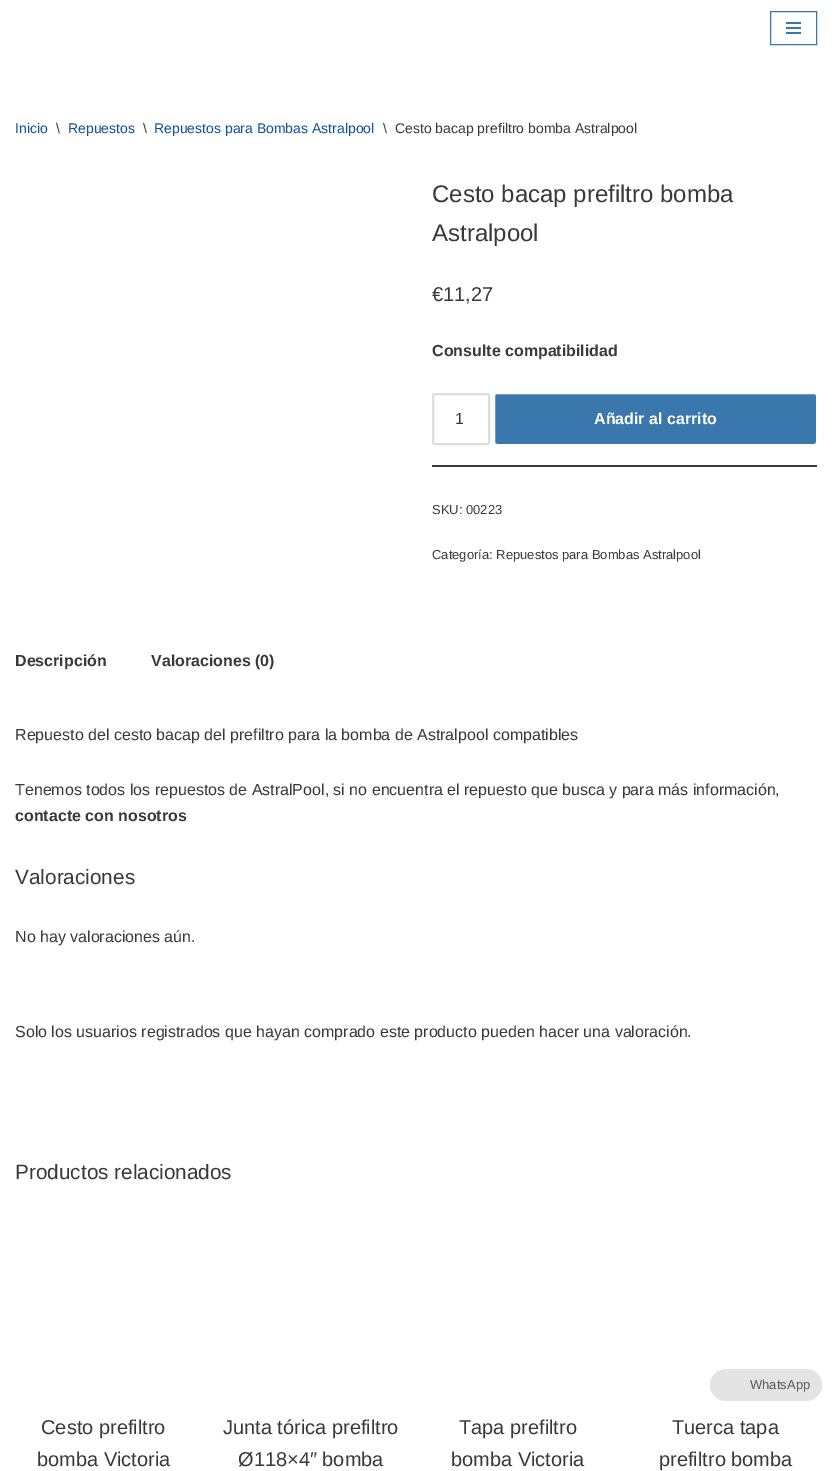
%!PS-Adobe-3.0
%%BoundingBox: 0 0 832 1471
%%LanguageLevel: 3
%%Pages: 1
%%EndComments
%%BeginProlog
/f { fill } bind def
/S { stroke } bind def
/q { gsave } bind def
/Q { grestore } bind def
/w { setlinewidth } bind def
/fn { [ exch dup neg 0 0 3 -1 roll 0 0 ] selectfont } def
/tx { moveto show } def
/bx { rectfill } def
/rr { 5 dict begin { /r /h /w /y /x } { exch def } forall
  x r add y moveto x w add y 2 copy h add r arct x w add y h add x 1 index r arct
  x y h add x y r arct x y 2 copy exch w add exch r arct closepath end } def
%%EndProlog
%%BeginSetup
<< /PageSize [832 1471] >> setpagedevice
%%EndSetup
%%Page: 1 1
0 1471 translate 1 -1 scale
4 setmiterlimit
1 setgray
0 0 832 1471 bx
0.224 0.467 0.678 setrgbcolor
770.5 11.5 46 33 rectstroke
786 22 15 2 bx
786 27 15 2 bx
786 32 15 2 bx
/LiberationSans-Regular 14 fn
0.055 0.314 0.604 setrgbcolor
(Inicio) 15 133 tx
0.224 setgray
(\\) 56 133 tx
0.055 0.314 0.604 setrgbcolor
(Repuestos) 68 133 tx
0.224 setgray
(\\) 143 133 tx
0.055 0.314 0.604 setrgbcolor
(Repuestos para Bombas Astralpool) 154 133 tx
0.224 setgray
(\\) 383 133 tx
(Cesto bacap prefiltro bomba Astralpool) 395 133 tx
/LiberationSans-Regular 24 fn
(Cesto bacap prefiltro bomba) 432 202 tx
(Astralpool) 432 241 tx
/LiberationSans-Regular 20 fn
(€11,27) 432 301 tx
/LiberationSans-Bold 16 fn
(Consulte compatibilidad) 432 356 tx
432 465 385 2 bx
0.867 setgray
2 w
433 394 56 50 2 rr S
/LiberationSans-Regular 16 fn
0.224 setgray
(1) 455 424 tx
0.224 0.467 0.678 setrgbcolor
494.5 393.5 322 51 2.5 rr q f Q
1 setgray
1 w
S
/LiberationSans-Bold 16 fn
(Añadir al carrito) 594 424 tx
/LiberationSans-Regular 13 fn
0.224 setgray
(SKU: 00223) 432 514 tx
(Categoría: Repuestos para Bombas Astralpool) 432 559 tx
/LiberationSans-Bold 16 fn
(Descripción) 15 666 tx
(Valoraciones \(0\)) 151 666 tx
/LiberationSans-Regular 16 fn
(Repuesto del cesto bacap del prefiltro para la bomba de Astralpool compatibles) 15 740 tx
(Tenemos todos los repuestos de AstralPool, si no encuentra el repuesto que busca y para más información,) 15 795 tx
/LiberationSans-Bold 16 fn
(contacte con nosotros) 15 821 tx
/LiberationSans-Regular 20.75 fn
(Valoraciones) 15 884 tx
/LiberationSans-Regular 16 fn
(No hay valoraciones aún.) 15 942 tx
(Solo los usuarios registrados que hayan comprado este producto pueden hacer una valoración.) 15 1037 tx
/LiberationSans-Regular 20.75 fn
(Productos relacionados) 15 1179 tx
/LiberationSans-Regular 20 fn
(Cesto prefiltro) 41 1434 tx
(bomba Victoria) 37 1466 tx
(Junta tórica prefiltro) 223 1434 tx
(Ø118×4″ bomba) 238 1466 tx
(Tapa prefiltro) 459 1434 tx
(bomba Victoria) 451 1466 tx
(Tuerca tapa) 672 1434 tx
(prefiltro bomba) 659 1466 tx
0.894 setgray
710 1369 112 32 16 rr f
/LiberationSans-Regular 13 fn
0.357 setgray
(WhatsApp) 750 1389 tx
showpage
%%EOF
